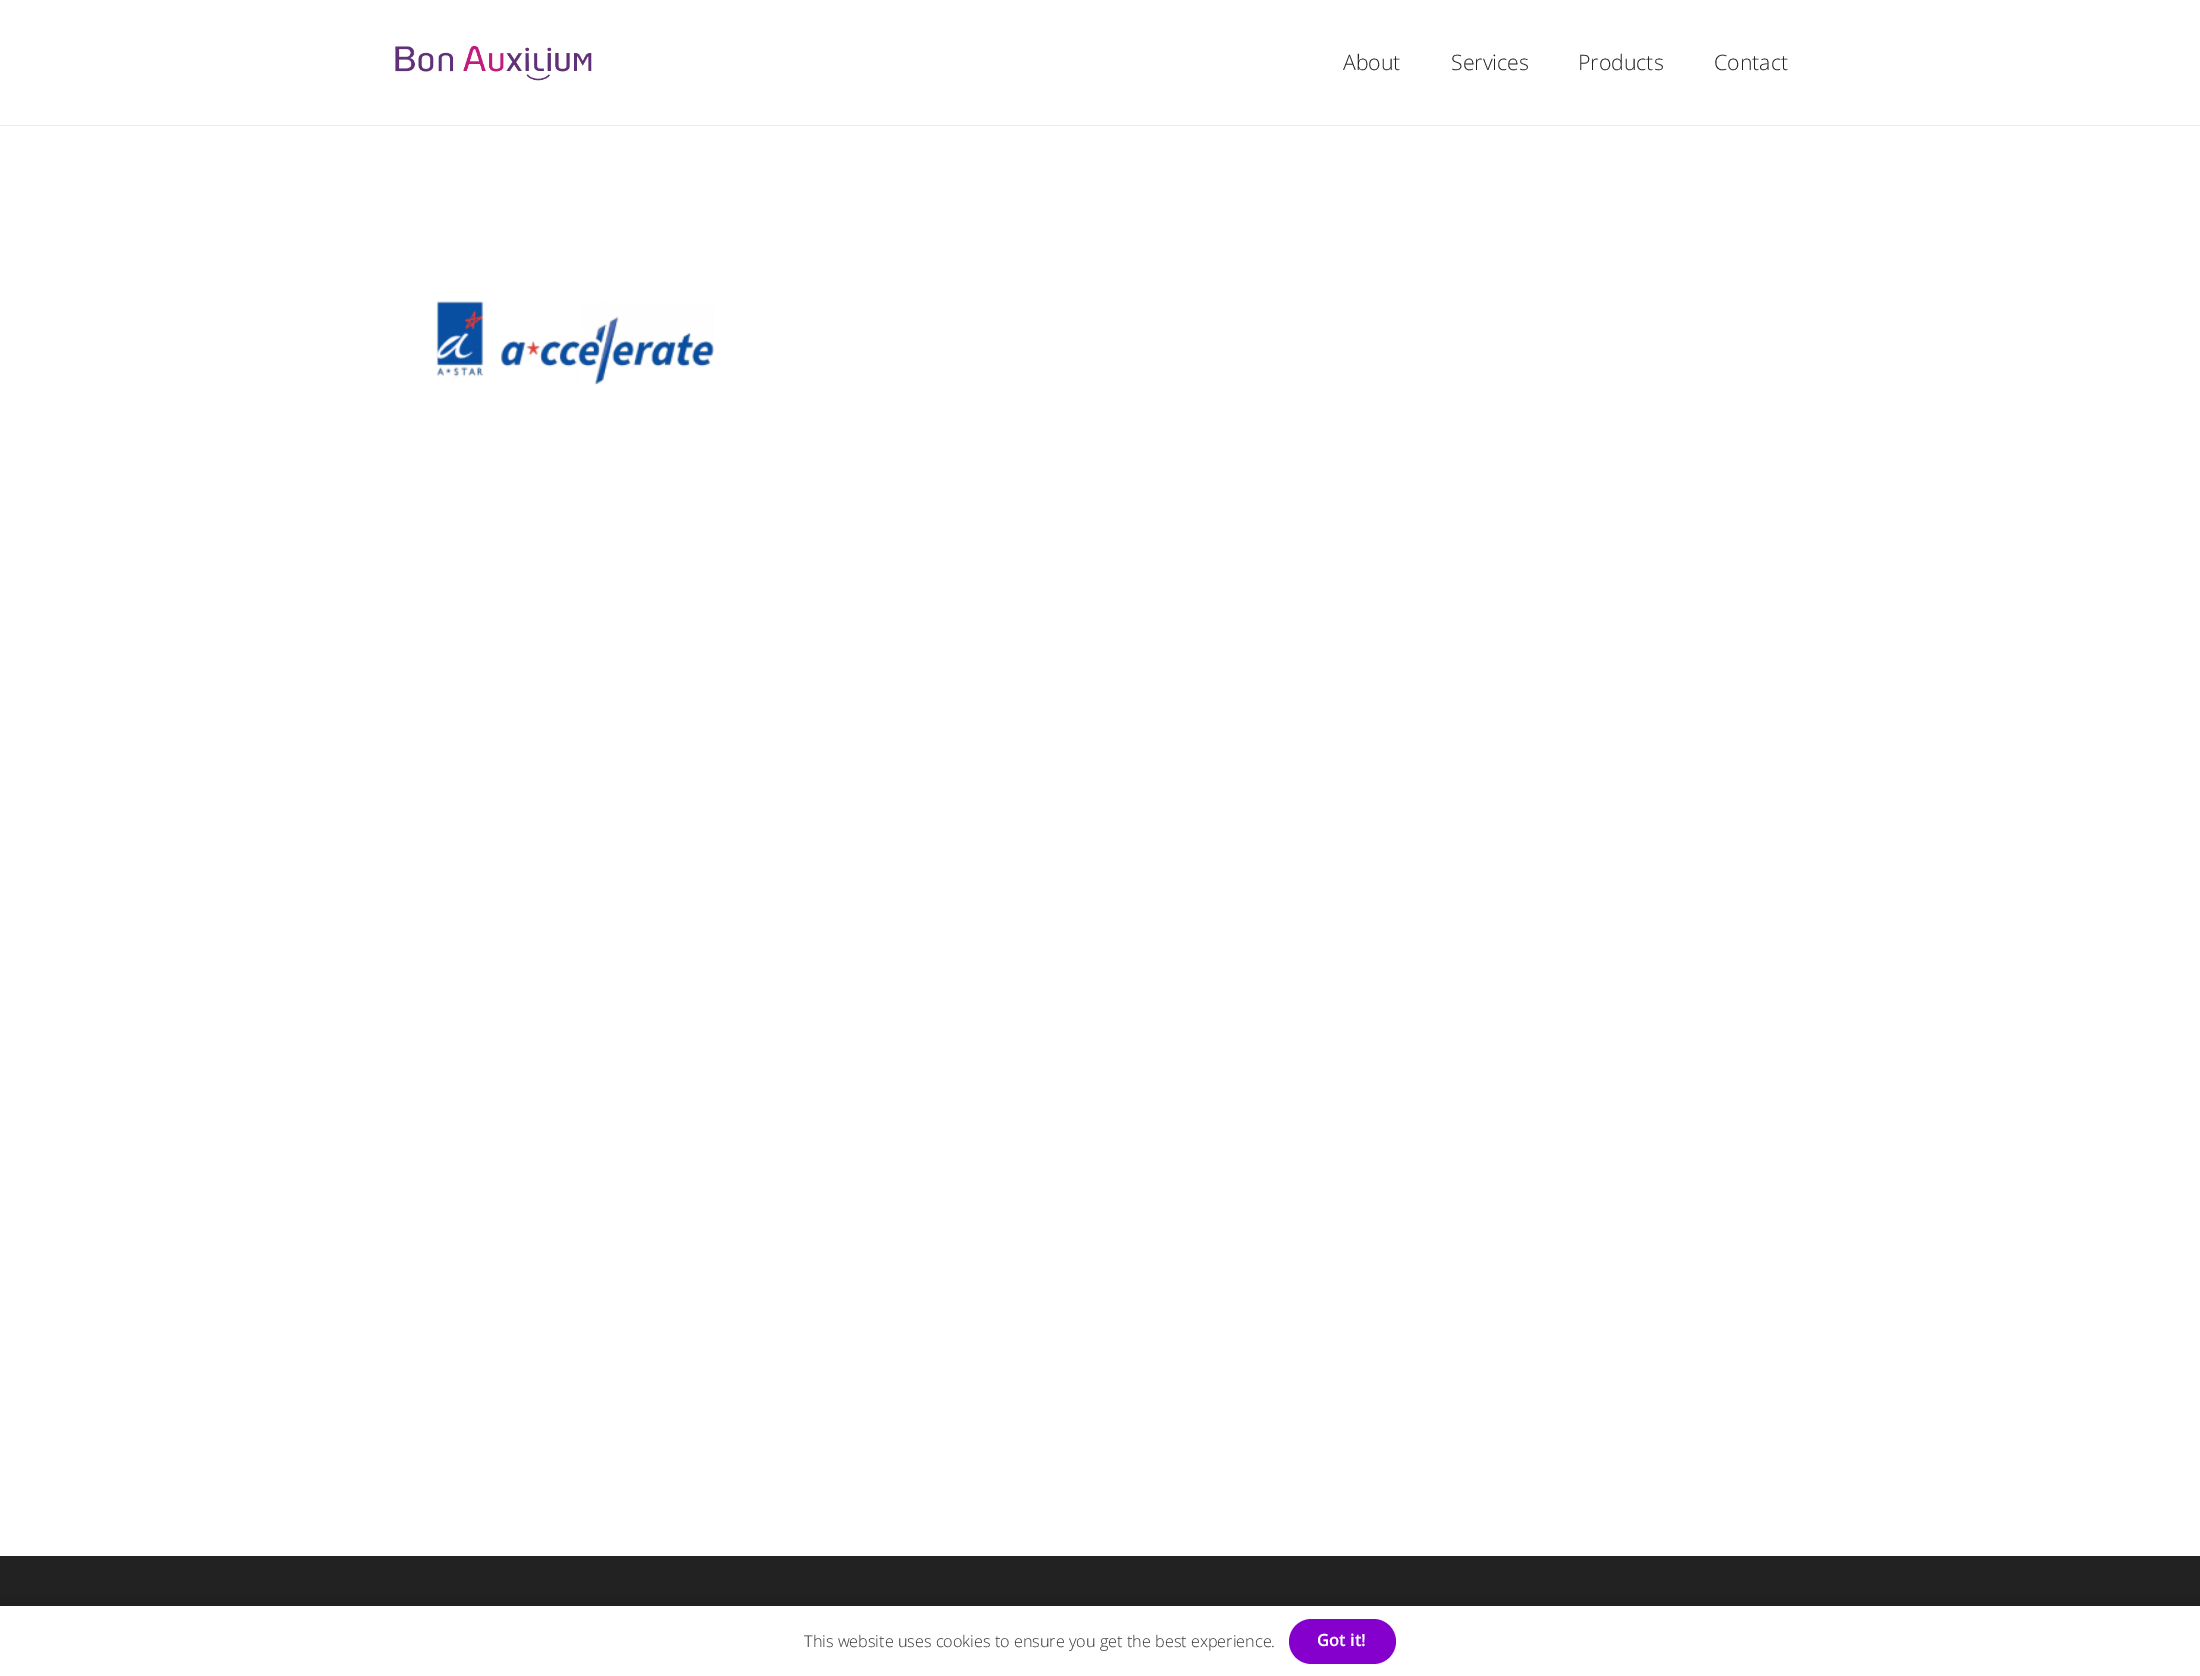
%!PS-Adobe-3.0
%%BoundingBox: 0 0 2200 1676
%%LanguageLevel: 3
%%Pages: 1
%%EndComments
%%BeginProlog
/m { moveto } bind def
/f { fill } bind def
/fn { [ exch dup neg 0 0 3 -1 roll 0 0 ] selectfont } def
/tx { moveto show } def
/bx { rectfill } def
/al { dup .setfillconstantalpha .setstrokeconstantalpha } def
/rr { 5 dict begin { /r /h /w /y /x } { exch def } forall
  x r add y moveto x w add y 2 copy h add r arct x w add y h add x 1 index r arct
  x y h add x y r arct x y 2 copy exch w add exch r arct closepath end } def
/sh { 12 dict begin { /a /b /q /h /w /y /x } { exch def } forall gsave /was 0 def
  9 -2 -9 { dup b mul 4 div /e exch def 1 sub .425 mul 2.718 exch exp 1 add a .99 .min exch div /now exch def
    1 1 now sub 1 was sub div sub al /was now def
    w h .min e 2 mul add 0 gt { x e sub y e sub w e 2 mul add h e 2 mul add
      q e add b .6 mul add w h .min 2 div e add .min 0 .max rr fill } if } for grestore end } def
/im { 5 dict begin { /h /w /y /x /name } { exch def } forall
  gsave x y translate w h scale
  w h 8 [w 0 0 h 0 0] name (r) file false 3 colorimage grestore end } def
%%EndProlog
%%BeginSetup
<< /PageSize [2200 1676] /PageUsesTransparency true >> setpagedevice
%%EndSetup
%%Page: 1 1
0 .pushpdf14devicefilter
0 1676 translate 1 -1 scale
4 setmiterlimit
1 setgray
0 0 2200 1676 bx
0.922 setgray
0 125 2200 1 bx
(image0.raw) 395 45 197 36 im
/OpenSans-Light 21.25 fn
0.133 setgray
(About) 1343 70 tx
(Services) 1451 70 tx
(Products) 1578 70 tx
(Contact) 1714 70 tx
(image1.raw) 436 301 278 84 im
0 1556 2200 50 bx
0 setgray
0 1600 2200 70 0 9.5 0.15 sh
1 setgray
0 1606 2200 70 bx
/OpenSans-Light 16.25 fn
0.2 setgray
(This website uses cookies to ensure you get the best experience.) 804 1647 tx
0.522 0 0.8 setrgbcolor
1289 1619 107 45 22.5 rr f
/OpenSans-Bold 16.25 fn
1 setgray
1317 1646 m 0.25 0 (Got it!) ashow
.poppdf14devicefilter showpage
%%EOF
